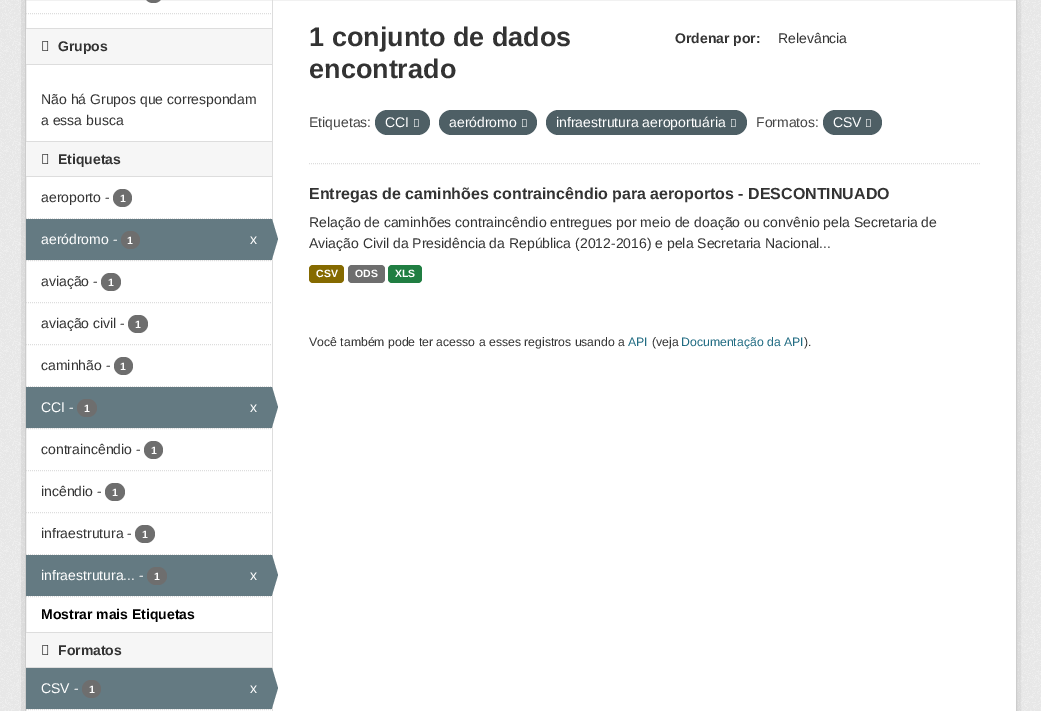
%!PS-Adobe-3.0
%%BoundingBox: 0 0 1041 711
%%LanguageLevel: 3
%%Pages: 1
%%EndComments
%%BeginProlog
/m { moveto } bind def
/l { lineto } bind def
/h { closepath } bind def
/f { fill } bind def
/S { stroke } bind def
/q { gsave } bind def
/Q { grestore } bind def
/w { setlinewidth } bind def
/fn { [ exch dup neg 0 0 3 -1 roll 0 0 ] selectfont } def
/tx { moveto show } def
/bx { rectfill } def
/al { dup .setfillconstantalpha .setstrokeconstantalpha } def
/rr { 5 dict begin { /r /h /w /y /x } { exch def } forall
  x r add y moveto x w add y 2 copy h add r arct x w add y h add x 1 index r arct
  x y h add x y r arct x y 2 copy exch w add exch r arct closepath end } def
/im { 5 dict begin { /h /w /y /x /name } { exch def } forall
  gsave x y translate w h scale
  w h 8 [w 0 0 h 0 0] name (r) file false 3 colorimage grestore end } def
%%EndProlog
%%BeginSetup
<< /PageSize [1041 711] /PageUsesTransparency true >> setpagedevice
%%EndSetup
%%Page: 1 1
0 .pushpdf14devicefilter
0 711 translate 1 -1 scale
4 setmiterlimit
0.933 setgray
0 0 1041 711 bx
(image0.raw) 0 0 1041 711 im
0.05 al
0 setgray
4 w
23 -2 996 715 rectstroke
1 al
1 setgray
25.5 -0.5 m 1016.5 -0.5 l 1016.5 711.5 l 25.5 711.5 l h q f Q
0.8 setgray
1 w
S
0.431 setgray
144 -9 19 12 9 rr f
0.867 setgray
[1 1] 0 setdash
26 13.5 m 272 13.5 l S
0.965 setgray
26 29 246 35 bx
0.867 setgray
26 28 246 1 bx
26 64 246 1 bx
(image1.raw) 42 41 7 10 im
/LiberationSans-Bold 14 fn
0.2 setgray
(Grupos) 58 51 tx
/LiberationSans-Regular 14 fn
(Não há Grupos que correspondam) 41 104 tx
(a essa busca) 41 125 tx
0.965 setgray
26 142 246 34 bx
0.867 setgray
26 141 246 1 bx
26 176 246 1 bx
(image1.raw) 42 154 7 10 im
/LiberationSans-Bold 14 fn
0.2 setgray
(Etiquetas) 58 164 tx
0.867 setgray
26 218.5 m 272 218.5 l S
/LiberationSans-Regular 14 fn
0.2 setgray
(aeroporto -) 41 202 tx
0.431 setgray
113 189 19 18 9 rr f
/LiberationSans-Bold 10.5 fn
1 setgray
(1) 120 202 tx
0.965 setgray
27 260 245 1 bx
0.867 setgray
26 260.5 m 272 260.5 l S
0.392 0.478 0.51 setrgbcolor
26 219 246 41 bx
/LiberationSans-Regular 14 fn
1 setgray
(aeródromo -) 41 244 tx
0.431 setgray
121 231 19 18 9 rr f
/LiberationSans-Bold 10.5 fn
1 setgray
(1) 127 244 tx
/LiberationSans-Regular 14 fn
(x) 250 244 tx
0.867 setgray
272 0 1 711 bx
0.392 0.478 0.51 setrgbcolor
272 259 m 272 219 l 278 239 l h f
0.867 setgray
26 302.5 m 272 302.5 l S
0.2 setgray
(aviação -) 41 286 tx
0.431 setgray
101 273 20 18 9 rr f
/LiberationSans-Bold 10.5 fn
1 setgray
(1) 108 286 tx
0.867 setgray
26 344.5 m 272 344.5 l S
/LiberationSans-Regular 14 fn
0.2 setgray
(aviação civil -) 41 328 tx
0.431 setgray
128 315 20 18 9 rr f
/LiberationSans-Bold 10.5 fn
1 setgray
(1) 135 328 tx
0.867 setgray
26 386.5 m 272 386.5 l S
/LiberationSans-Regular 14 fn
0.2 setgray
(caminhão -) 41 370 tx
0.431 setgray
114 357 19 18 9 rr f
/LiberationSans-Bold 10.5 fn
1 setgray
(1) 120 370 tx
0.965 setgray
27 428 245 1 bx
0.867 setgray
26 428.5 m 272 428.5 l S
0.392 0.478 0.51 setrgbcolor
26 387 246 41 bx
/LiberationSans-Regular 14 fn
1 setgray
(CCI -) 41 412 tx
0.431 setgray
77 399 20 18 9 rr f
/LiberationSans-Bold 10.5 fn
1 setgray
(1) 84 412 tx
/LiberationSans-Regular 14 fn
(x) 250 412 tx
0.392 0.478 0.51 setrgbcolor
272 427 m 272 387 l 278 407 l h f
0.867 setgray
26 470.5 m 272 470.5 l S
0.2 setgray
(contraincêndio -) 41 454 tx
0.431 setgray
144 441 19 18 9 rr f
/LiberationSans-Bold 10.5 fn
1 setgray
(1) 151 454 tx
0.867 setgray
26 512.5 m 272 512.5 l S
/LiberationSans-Regular 14 fn
0.2 setgray
(incêndio -) 41 496 tx
0.431 setgray
105 483 20 18 9 rr f
/LiberationSans-Bold 10.5 fn
1 setgray
(1) 112 496 tx
0.867 setgray
26 554.5 m 272 554.5 l S
/LiberationSans-Regular 14 fn
0.2 setgray
(infraestrutura -) 41 538 tx
0.431 setgray
135 525 20 18 9 rr f
/LiberationSans-Bold 10.5 fn
1 setgray
(1) 142 538 tx
0.392 0.478 0.51 setrgbcolor
26 555 246 41 bx
/LiberationSans-Regular 14 fn
1 setgray
(infraestrutura... -) 41 580 tx
0.431 setgray
147 567 20 18 9 rr f
/LiberationSans-Bold 10.5 fn
1 setgray
(1) 154 580 tx
/LiberationSans-Regular 14 fn
(x) 250 580 tx
0.392 0.478 0.51 setrgbcolor
272 595 m 272 555 l 278 575 l h f
0.867 setgray
26 596.5 m 272 596.5 l S
/LiberationSans-Bold 14 fn
0 setgray
(Mostrar mais Etiquetas) 41 619 tx
0.965 setgray
26 633 246 34 bx
0.867 setgray
26 632 246 1 bx
26 667 246 1 bx
(image1.raw) 42 645 7 10 im
0.2 setgray
(Formatos) 58 655 tx
0.965 setgray
27 709 245 1 bx
0.867 setgray
26 709.5 m 272 709.5 l S
0.392 0.478 0.51 setrgbcolor
26 668 246 41 bx
/LiberationSans-Regular 14 fn
1 setgray
(CSV -) 41 693 tx
0.431 setgray
82 680 19 18 9 rr f
/LiberationSans-Bold 10.5 fn
1 setgray
(1) 89 693 tx
/LiberationSans-Regular 14 fn
(x) 250 693 tx
0.392 0.478 0.51 setrgbcolor
272 708 m 272 668 l 278 688 l h f
0.867 setgray
309 163.5 m 980 163.5 l S
/LiberationSans-Bold 27 fn
0.2 setgray
(1 conjunto de dados) 309 46 tx
(encontrado) 309 78 tx
/LiberationSans-Bold 14 fn
(Ordenar por:) 675 43 tx
/LiberationSans-Regular 14 fn
(Relevância) 778 43 tx
0.267 setgray
(Etiquetas:) 309 127 tx
0.306 0.373 0.396 setrgbcolor
375 110 55 25 12.5 rr f
1 setgray
(CCI) 385 127 tx
(image2.raw) 414 119 5 8 im
0.306 0.373 0.396 setrgbcolor
439 110 98 25 12.5 rr f
1 setgray
(aeródromo) 449 127 tx
(image2.raw) 522 119 5 8 im
0.306 0.373 0.396 setrgbcolor
546 110 201 25 12.5 rr f
1 setgray
(infraestrutura aeroportuária) 556 127 tx
(image2.raw) 731 119 5 8 im
0.267 setgray
(Formatos:) 756 127 tx
0.306 0.373 0.396 setrgbcolor
823 110 59 25 12.5 rr f
1 setgray
(CSV) 833 127 tx
(image2.raw) 866 119 5 8 im
/LiberationSans-Bold 16 fn
0.2 setgray
(Entregas de caminhões contraincêndio para aeroportos - DESCONTINUADO) 309 199 tx
/LiberationSans-Regular 14 fn
(Relação de caminhões contraincêndio entregues por meio de doação ou convênio pela Secretaria de) 309 227 tx
(Aviação Civil da Presidência da República \(2012-2016\) e pela Secretaria Nacional...) 309 248 tx
0.522 0.416 0 setrgbcolor
309 265 35 18 4 rr f
/LiberationSans-Bold 10.5 fn
1 setgray
(CSV) 316 277 tx
0.431 setgray
348 265 37 18 4 rr f
1 setgray
(ODS) 355 277 tx
0.125 0.494 0.259 setrgbcolor
388 265 34 18 4 rr f
1 setgray
(XLS) 395 277 tx
/LiberationSans-Regular 12.25 fn
0.2 setgray
(Você também pode ter acesso a esses registros usando a) 309 346 tx
0.125 0.42 0.51 setrgbcolor
(API) 628 346 tx
0.2 setgray
(\(veja) 652 346 tx
0.125 0.42 0.51 setrgbcolor
(Documentação da API) 681 346 tx
0.2 setgray
(\).) 804 346 tx
.poppdf14devicefilter showpage
%%EOF
